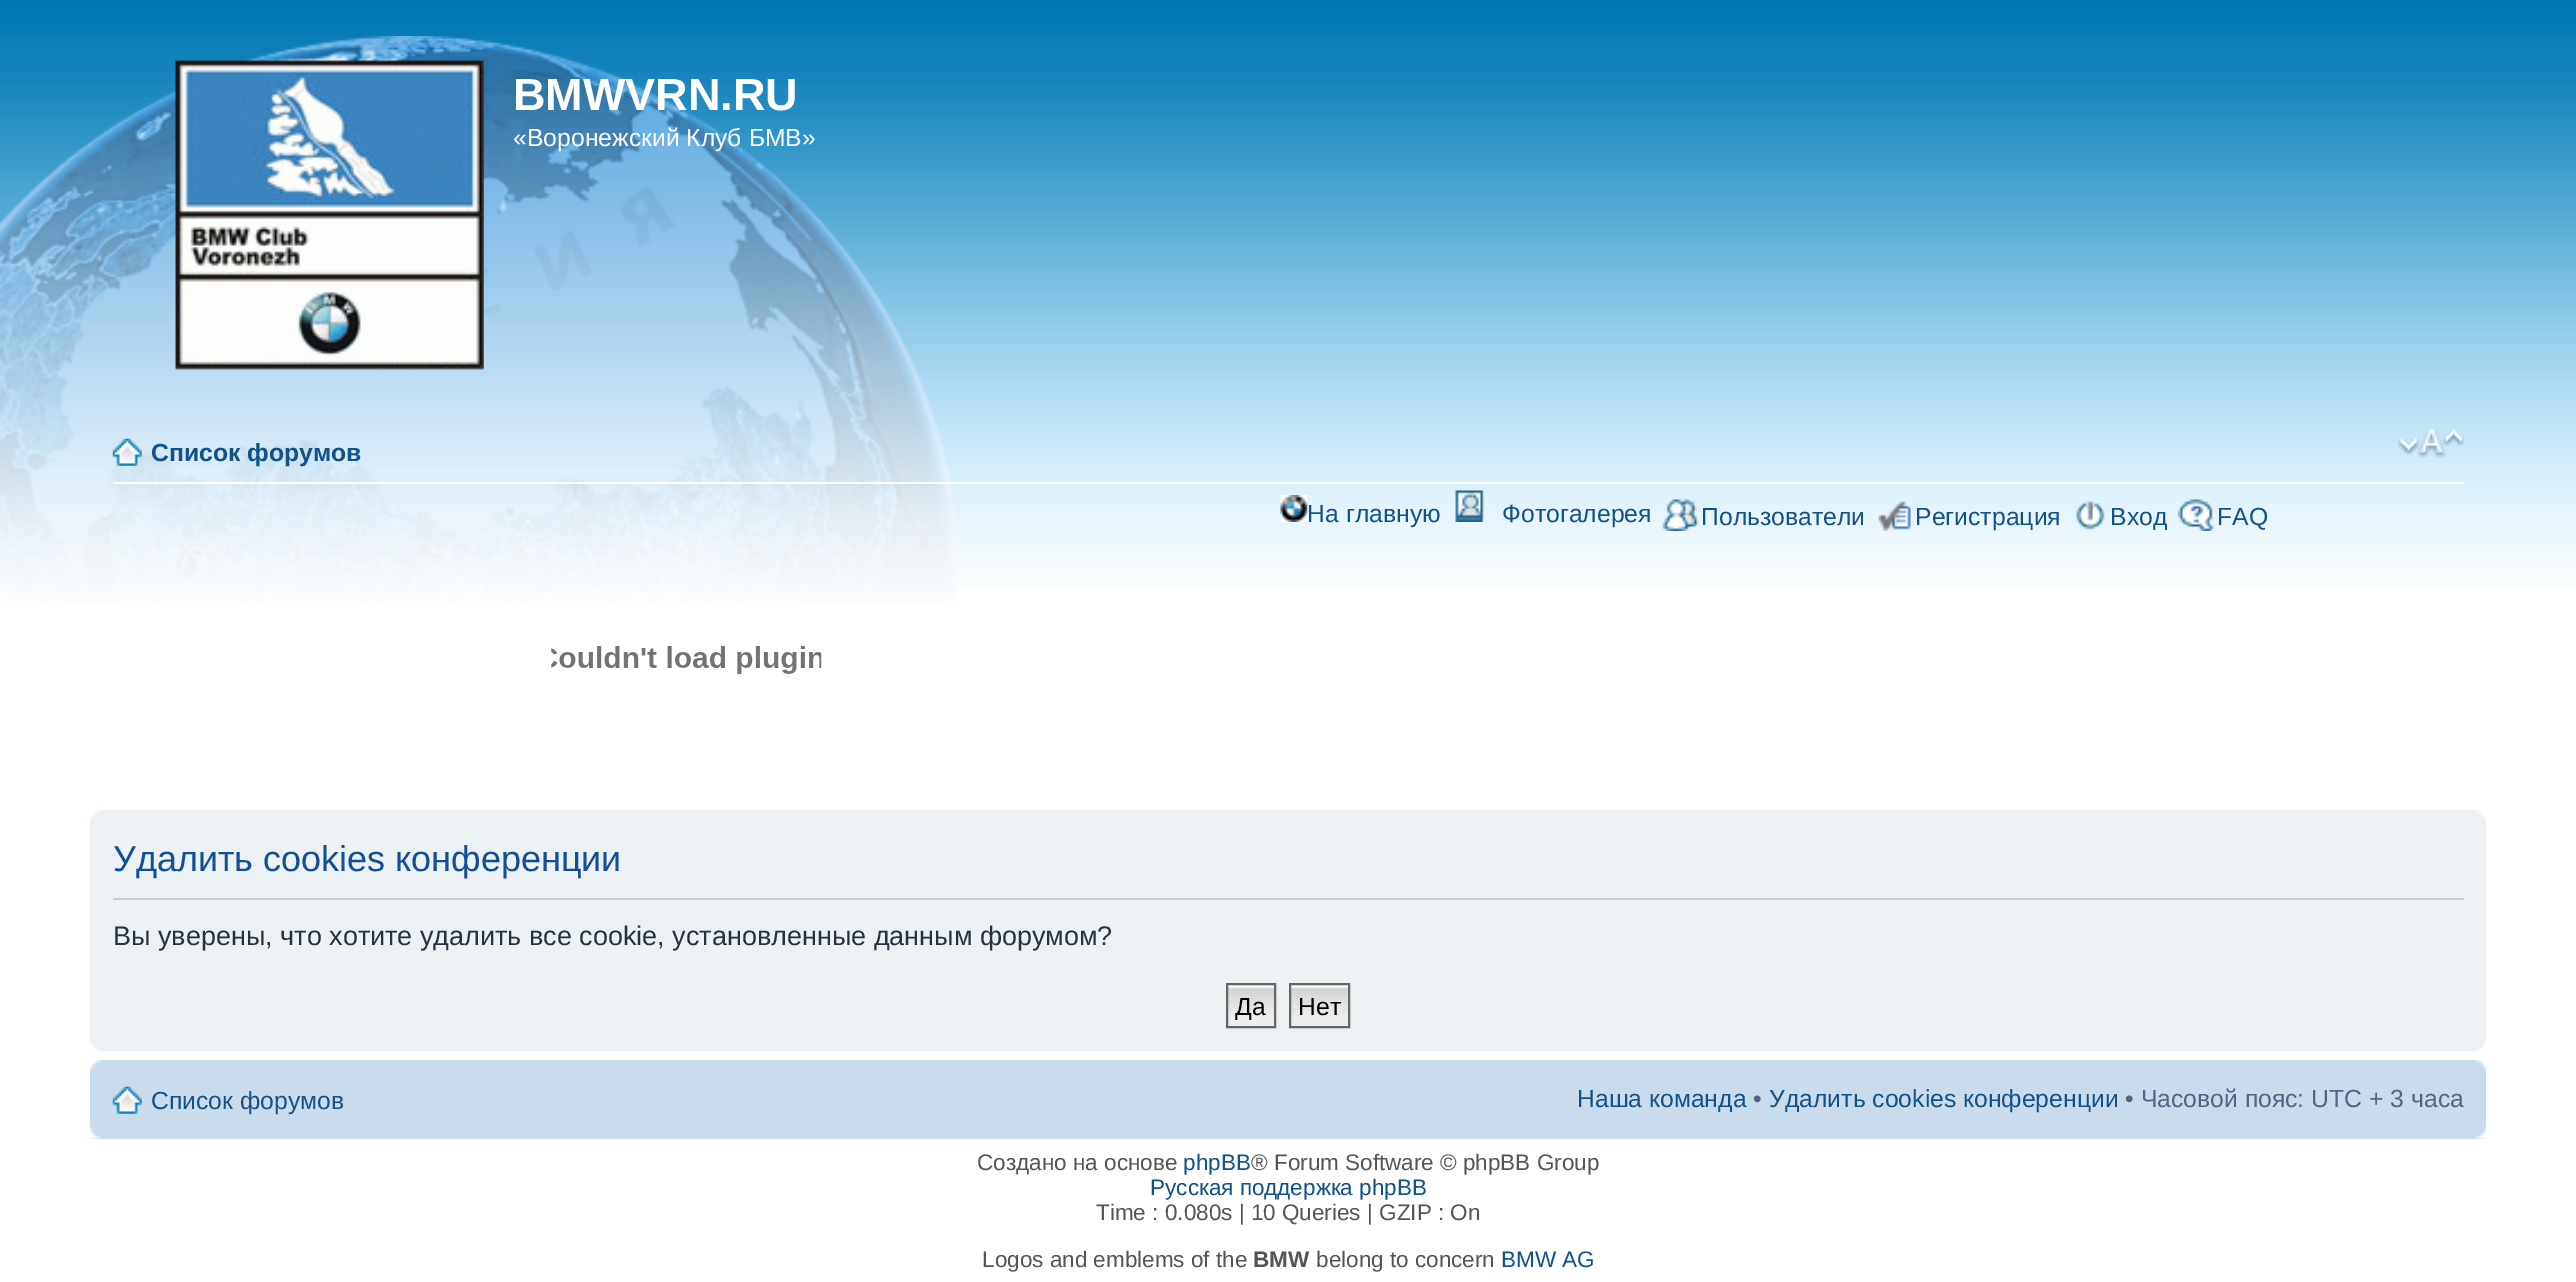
%!PS-Adobe-3.0
%%BoundingBox: 0 0 2576 1282
%%LanguageLevel: 3
%%Pages: 1
%%EndComments
%%BeginProlog
/w { setlinewidth } bind def
/fn { [ exch dup neg 0 0 3 -1 roll 0 0 ] selectfont } def
/tx { moveto show } def
/bx { rectfill } def
/im { 5 dict begin { /h /w /y /x /name } { exch def } forall
  gsave x y translate w h scale
  w h 8 [w 0 0 h 0 0] name (r) file false 3 colorimage grestore end } def
%%EndProlog
%%BeginSetup
<< /PageSize [2576 1282] >> setpagedevice
%%EndSetup
%%Page: 1 1
0 1282 translate 1 -1 scale
4 setmiterlimit
1 setgray
0 0 2576 1282 bx
(image0.raw) 0 0 2576 586 im
(image1.raw) 0 36 958 566 im
(image2.raw) 175 60 309 310 im
/LiberationSans-Bold 45 fn
(BMWVRN.RU) 513 110 tx
/LiberationSans-Regular 24.75 fn
(«Воронежский Клуб БМВ») 513 146 tx
113 482 2351 2 bx
(image3.raw) 112 438 30 28 im
/LiberationSans-Bold 24.75 fn
0.063 0.322 0.537 setrgbcolor
(Список форумов) 151 461 tx
(image4.raw) 2398 429 66 29 im
(image5.raw) 1280 495 28 27 im
/LiberationSans-Regular 24.75 fn
(На главную) 1307 522 tx
(image6.raw) 1455 490 29 32 im
(Фотогалерея) 1502 522 tx
(image7.raw) 1662 499 37 32 im
(Пользователи) 1701 525 tx
(image8.raw) 1878 501 33 30 im
(Регистрация) 1915 525 tx
(image9.raw) 2076 501 29 29 im
(Вход) 2110 525 tx
(image10.raw) 2178 499 36 32 im
(FAQ) 2217 525 tx
(image11.raw) 551 646 271 28 im
0.925 0.945 0.953 setrgbcolor
90 810 2396 241 bx
(image12.raw) 90 810 11 11 im
(image13.raw) 2476 810 10 11 im
0.8 setgray
113 898 2351 2 bx
/LiberationSans-Regular 36 fn
0.067 0.314 0.596 setrgbcolor
(Удалить cookies конференции) 113 871 tx
/LiberationSans-Regular 27 fn
0.157 0.192 0.247 setrgbcolor
(Вы уверены, что хотите удалить все cookie, установленные данным форумом?) 113 945 tx
0.98 setgray
1228 985 46 1 bx
(image14.raw) 1228 986 46 40 im
0.4 setgray
2 w
1227 984 48 43 rectstroke
/LiberationSans-Regular 24.75 fn
0 setgray
(Да) 1235 1015 tx
0.98 setgray
1291 985 57 1 bx
(image15.raw) 1291 986 57 40 im
0.4 setgray
1290 984 59 43 rectstroke
0 setgray
(Нет) 1298 1015 tx
(image16.raw) 90 1040 10 11 im
(image17.raw) 2476 1040 10 11 im
0.792 0.863 0.922 setrgbcolor
90 1060 2396 79 bx
(image18.raw) 90 1060 12 11 im
(image19.raw) 2474 1060 12 11 im
(image20.raw) 112 1086 30 28 im
0.063 0.322 0.537 setrgbcolor
(Список форумов) 151 1109 tx
(Наша команда) 1577 1107 tx
0.325 0.392 0.51 setrgbcolor
(•) 1753 1107 tx
0.063 0.322 0.537 setrgbcolor
(Удалить cookies конференции) 1769 1107 tx
0.325 0.392 0.51 setrgbcolor
(• Часовой пояс: UTC + 3 часа) 2125 1107 tx
(image21.raw) 90 1127 12 12 im
(image22.raw) 2475 1127 11 12 im
/LiberationSans-Regular 22.5 fn
0.333 setgray
(Создано на основе) 977 1170 tx
0.063 0.322 0.537 setrgbcolor
(phpBB) 1183 1170 tx
0.333 setgray
(® Forum Software © phpBB Group) 1251 1170 tx
0.063 0.322 0.537 setrgbcolor
(Русская поддержка phpBB) 1150 1195 tx
0.333 setgray
(Time : 0.080s | 10 Queries | GZIP : On) 1096 1220 tx
(Logos and emblems of the) 982 1267 tx
/LiberationSans-Bold 22.5 fn
(BMW) 1253 1267 tx
/LiberationSans-Regular 22.5 fn
(belong to concern) 1316 1267 tx
0.063 0.322 0.537 setrgbcolor
(BMW AG) 1501 1267 tx
showpage
%%EOF
